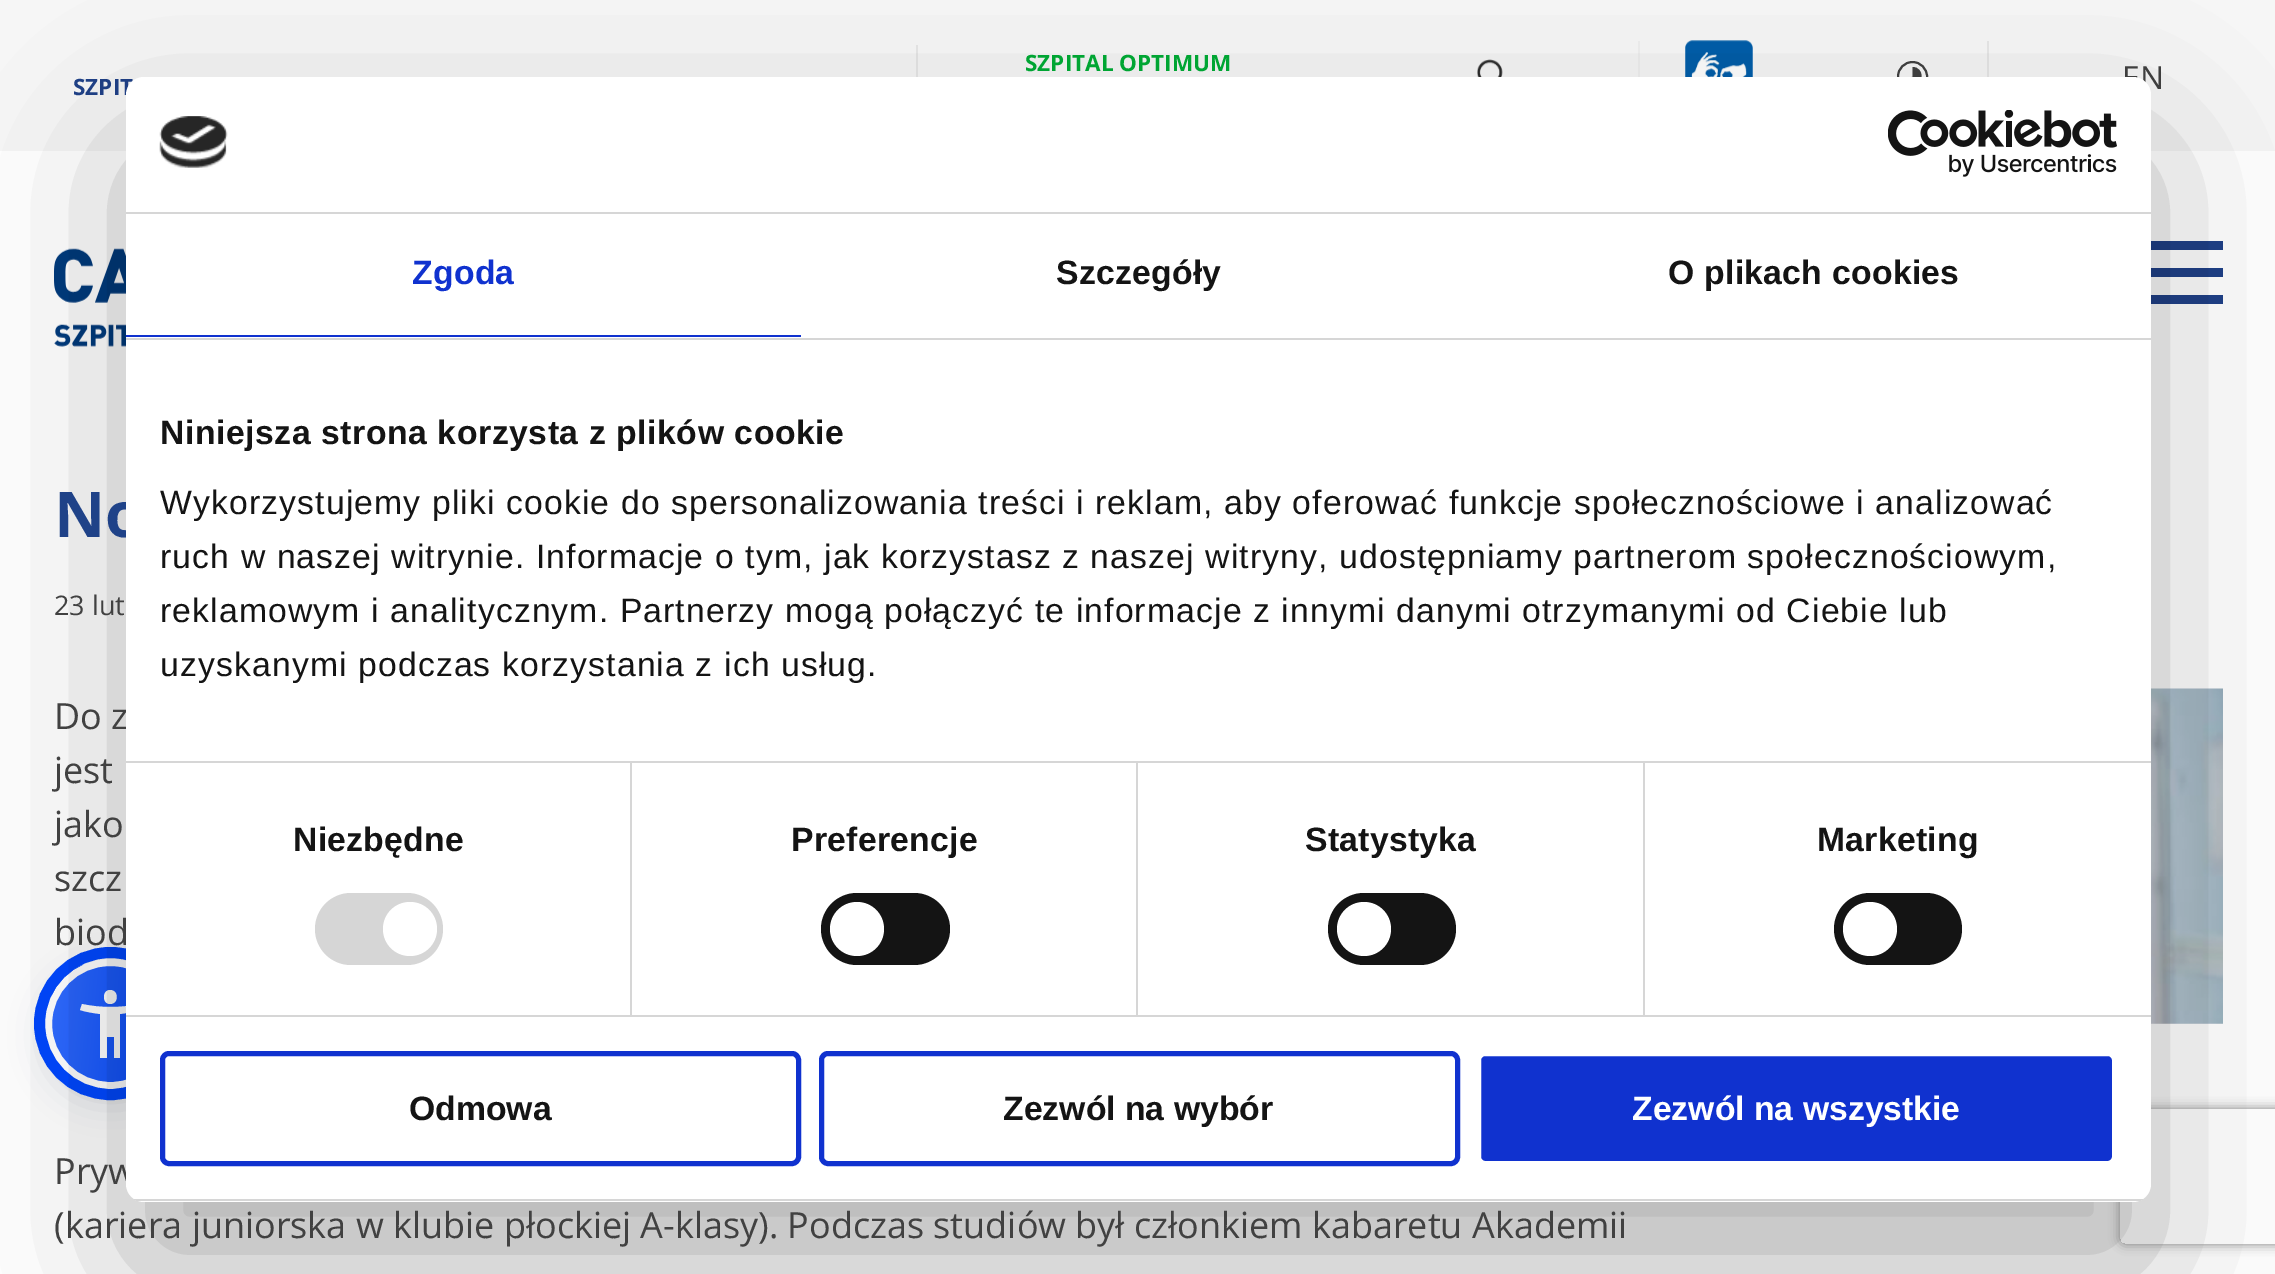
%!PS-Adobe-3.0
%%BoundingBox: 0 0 2275 1274
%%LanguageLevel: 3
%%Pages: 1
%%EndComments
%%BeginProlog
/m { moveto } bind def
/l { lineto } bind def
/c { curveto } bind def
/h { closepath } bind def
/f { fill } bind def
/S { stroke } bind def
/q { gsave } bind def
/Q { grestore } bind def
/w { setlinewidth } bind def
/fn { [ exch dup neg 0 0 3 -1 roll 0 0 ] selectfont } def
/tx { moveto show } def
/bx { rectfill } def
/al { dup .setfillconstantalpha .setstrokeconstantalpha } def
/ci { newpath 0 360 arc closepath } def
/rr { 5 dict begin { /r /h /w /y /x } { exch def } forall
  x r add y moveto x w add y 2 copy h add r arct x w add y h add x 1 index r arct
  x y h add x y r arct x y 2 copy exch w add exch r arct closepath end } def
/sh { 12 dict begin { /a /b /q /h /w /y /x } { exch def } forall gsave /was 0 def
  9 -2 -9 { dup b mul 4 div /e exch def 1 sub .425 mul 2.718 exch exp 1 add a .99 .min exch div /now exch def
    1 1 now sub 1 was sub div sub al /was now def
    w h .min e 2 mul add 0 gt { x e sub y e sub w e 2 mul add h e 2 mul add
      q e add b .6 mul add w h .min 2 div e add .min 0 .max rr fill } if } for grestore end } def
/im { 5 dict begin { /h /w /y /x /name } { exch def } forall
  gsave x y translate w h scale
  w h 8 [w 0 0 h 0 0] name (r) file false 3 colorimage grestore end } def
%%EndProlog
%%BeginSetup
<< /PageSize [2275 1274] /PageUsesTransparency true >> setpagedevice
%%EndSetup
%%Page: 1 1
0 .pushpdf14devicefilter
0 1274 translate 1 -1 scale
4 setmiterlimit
1 setgray
0 0 2275 1274 bx
0.965 setgray
0 0 2275 151 bx
0.902 setgray
916 45 2 32 bx
/OpenSans-Bold 22.5 fn
0.122 0.259 0.533 setrgbcolor
(SZPIT) 73 95 tx
0 0.675 0.208 setrgbcolor
(SZPITAL OPTIMUM) 1025 71 tx
(image0.raw) 1477 59 26 18 im
0.902 setgray
1987 41 2 36 bx
0.933 setgray
1638 41 2 36 bx
(image1.raw) 1685 40 68 37 im
0.255 setgray
2 w
1912.5 76.5 14.5 ci S
9 w
1912.5 71.5 m 1918.5 71.5 1918.5 80.5 1912.5 80.5 c S
/OpenSans-Regular 32 fn
(EN) 2122 89 tx
(image2.raw) 54 248 72 99 im
0.122 0.259 0.533 setrgbcolor
2151 268 72 9 bx
2151 241 72 9 bx
2151 295 72 9 bx
(image5.raw) 2151 688 72 336 im
0.365 0.392 0.58 setrgbcolor
45 963 131 131 65.5 4.5 0.2 sh
0.145 0.173 0.38 setrgbcolor
45 970 131 130 65 17 0.15 sh
q
45 959 131 130 65 rr clip newpath
q 52 965 m 126 965 l 126 1082 l 52 1082 l h clip newpath
<< /ShadingType 2 /ColorSpace /DeviceRGB /Coords [46 1017 174 1030] /Extend [true true] /Function << /FunctionType 2 /Domain [0 1] /C0 [0.196 0.424 1] /C1 [0 0.282 1] /N 1 >> >> shfill Q
Q
1 setgray
7 w
48.5 962.5 124 123 61.5 rr S
0 0.282 1 setrgbcolor
11 w
110.5 1023.5 71 ci S
1 setgray
139 1004 m 121 1008 100 1008 82 1004 c 80 1010 l 86 1012 93 1013 100 1014 c 100 1058 l 107 1058 l 107 1037 l 114 1037 l 114 1058 l 120 1058 l 120 1014 l 127 1013 134 1012 141 1010 c h 110 1004 m 119 1004 119 990 110 990 c 102 990 102 1004 110 1004 c h f
0 setgray
126 149 2025 1125 18 76.5 0.3 sh
/OpenSans-Bold 63 fn
0.122 0.259 0.533 setrgbcolor
(No) 54 537 tx
/OpenSans-Regular 36 fn
0.255 setgray
(Do z) 54 729 tx
(Pryw) 54 1184 tx
q
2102 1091 m 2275 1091 l 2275 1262 l 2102 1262 l h 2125 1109 m 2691 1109 l 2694 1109 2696 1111 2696 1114 c 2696 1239 l 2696 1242 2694 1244 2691 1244 c 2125 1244 l 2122 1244 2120 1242 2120 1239 c 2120 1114 l 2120 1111 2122 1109 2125 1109 c h eoclip newpath
0.502 setgray
2120 1109 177 135 5 5.5 1 sh
Q
1 setgray
126 77 2025 1125 18 rr f
0.839 setgray
126 212 2025 2 bx
(image3.raw) 159 116 69 52 im
(image4.raw) 1888 110 229 67 im
126 338 2025 2 bx
0.063 0.196 0.812 setrgbcolor
126 335 675 2 bx
/LiberationSans-Bold 33.75 fn
412 284 m 0.25 0 (Zgoda) ashow
0.078 setgray
1056 284 m 0.25 0 (Szczegóły) ashow
1668 284 m 0.25 0 (O plikach cookies) ashow
0.839 setgray
126 761 2025 2 bx
0.078 setgray
160 444 m 0.55 0 (Niniejsza strona korzysta z plików cookie) ashow
/LiberationSans-Regular 33.75 fn
160 514 m 1.12 0 (Wykorzystujemy pliki cookie do spersonalizowania treści i reklam, aby oferować funkcje społecznościowe i analizować) ashow
160 568 m 1.12 0 (ruch w naszej witrynie. Informacje o tym, jak korzystasz z naszej witryny, udostępniamy partnerom społecznościowym,) ashow
160 622 m 1.12 0 (reklamowym i analitycznym. Partnerzy mogą połączyć te informacje z innymi danymi otrzymanymi od Ciebie lub) ashow
160 676 m 1.12 0 (uzyskanymi podczas korzystania z ich usług.) ashow
0.839 setgray
126 1015 2025 2 bx
630 763 2 252 bx
/LiberationSans-Bold 33.75 fn
0.078 setgray
293 851 m 0.25 0 (Niezbędne) ashow
0.839 setgray
315 893 128 72 36 rr f
1 setgray
410 929 27 ci f
0.839 setgray
1136 763 2 252 bx
0.078 setgray
791 851 m 0.25 0 (Preferencje) ashow
821 893 129 72 36 rr f
1 setgray
857 929 27 ci f
0.839 setgray
1643 763 2 252 bx
0.078 setgray
1305 851 m 0.25 0 (Statystyka) ashow
1328 893 128 72 36 rr f
1 setgray
1364 929 27 ci f
0.078 setgray
1817 851 m 0.25 0 (Marketing) ashow
1834 893 128 72 36 rr f
1 setgray
1870 929 27 ci f
q
126 77 2025 1125 18 rr clip newpath
0.839 setgray
126 1199 2025 2 bx
Q
0.063 0.196 0.812 setrgbcolor
5 w
162.5 1053.5 636 110 6.5 rr S
0.078 setgray
(Odmowa) 409 1120 tx
0.063 0.196 0.812 setrgbcolor
821.5 1053.5 636 110 6.5 rr S
0.078 setgray
(Zezwól na wybór) 1003 1120 tx
0.063 0.196 0.812 setrgbcolor
1478.5 1053.5 636 110 6.5 rr q f Q
1 setgray
S
(Zezwól na wszystkie) 1632 1120 tx
/OpenSans-Regular 27 fn
0.255 setgray
(23 lut) 54 615 tx
/OpenSans-Regular 36 fn
(jest) 54 783 tx
(jako) 54 837 tx
(szcz) 54 891 tx
(biod) 54 945 tx
(\(kariera juniorska w klubie płockiej A-klasy\). Podczas studiów był członkiem kabaretu Akademii) 54 1238 tx
.poppdf14devicefilter showpage
%%EOF
